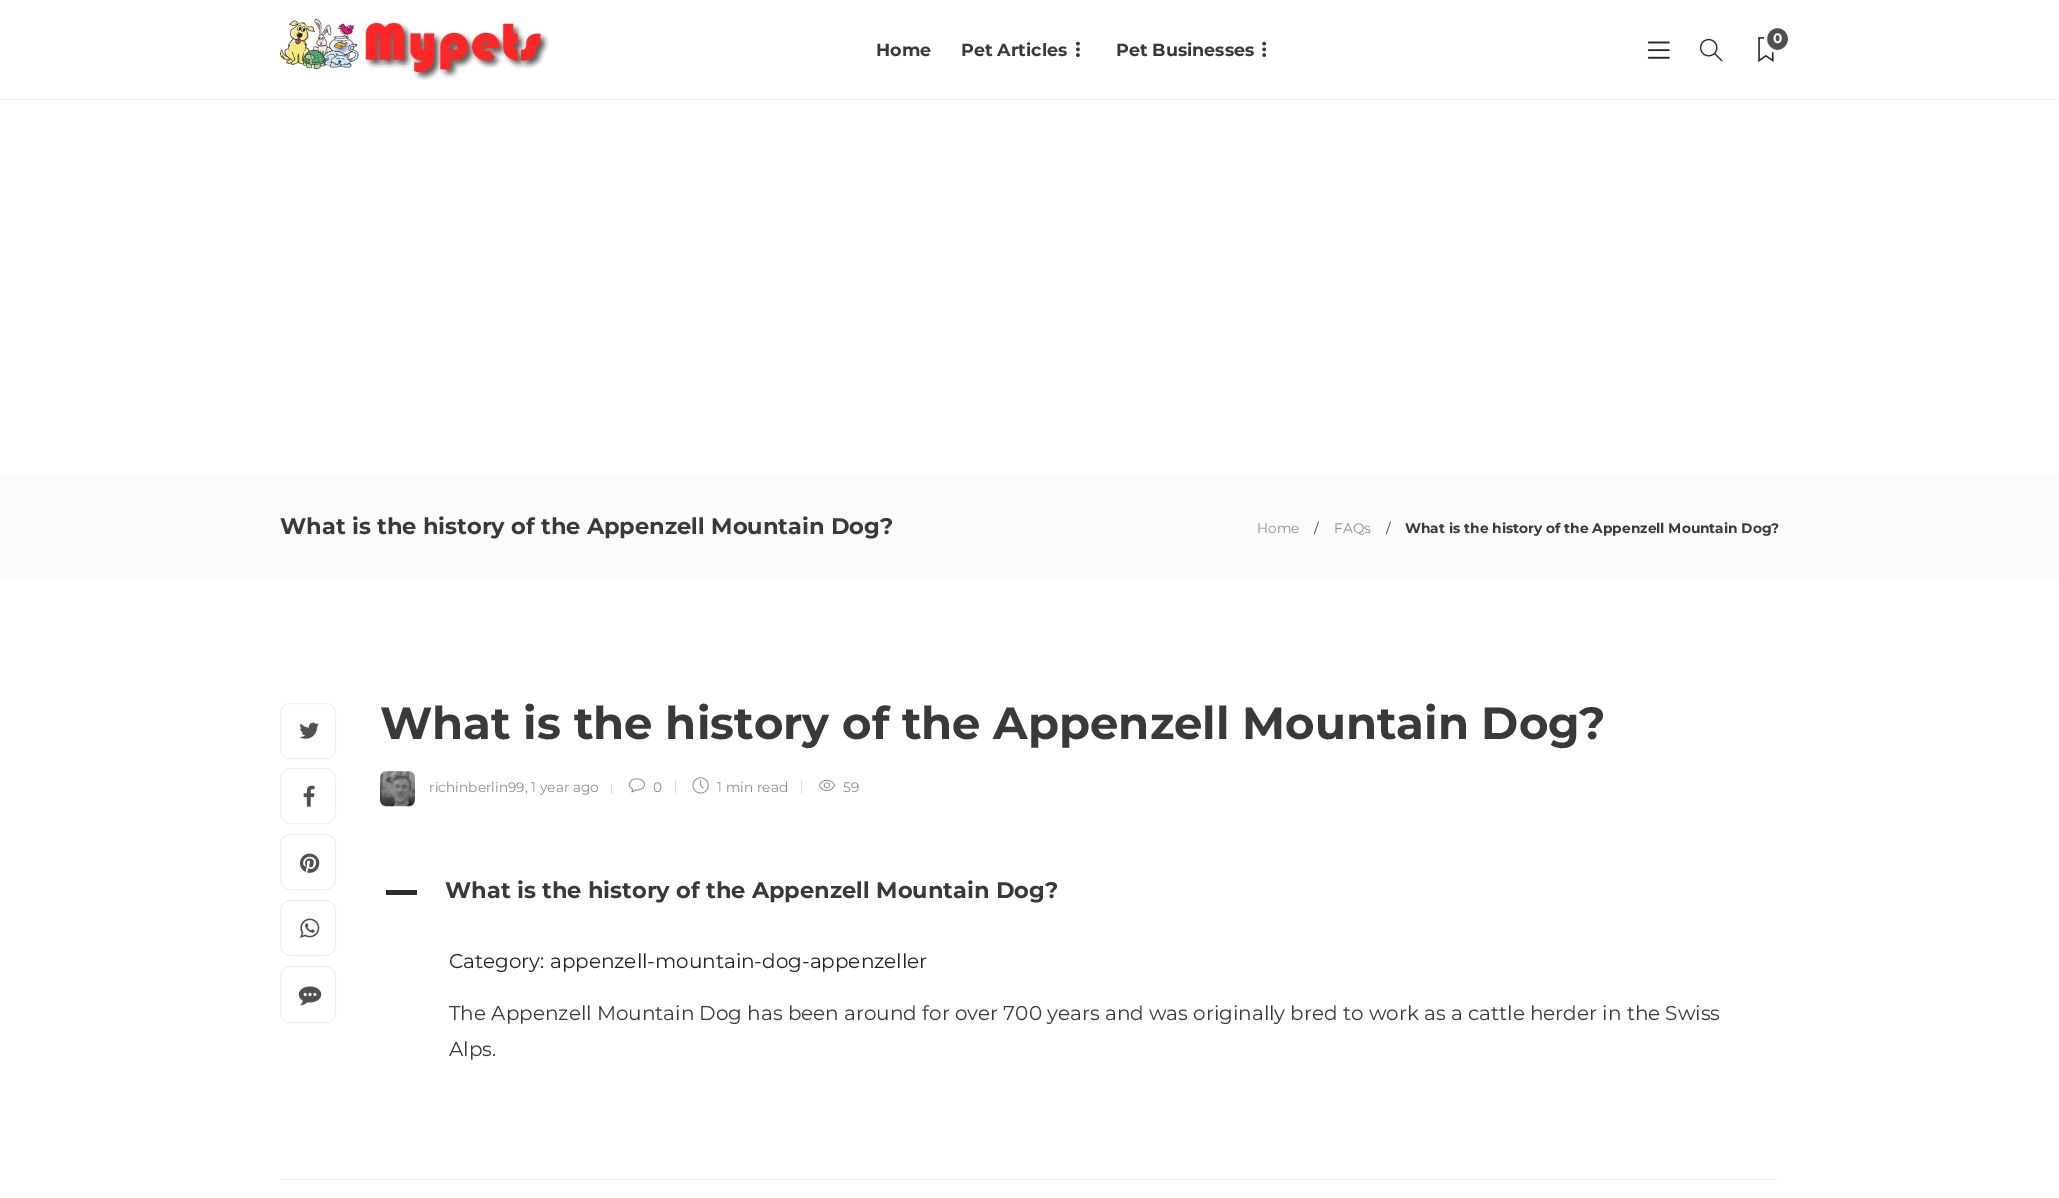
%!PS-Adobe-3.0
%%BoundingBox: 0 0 2059 1198
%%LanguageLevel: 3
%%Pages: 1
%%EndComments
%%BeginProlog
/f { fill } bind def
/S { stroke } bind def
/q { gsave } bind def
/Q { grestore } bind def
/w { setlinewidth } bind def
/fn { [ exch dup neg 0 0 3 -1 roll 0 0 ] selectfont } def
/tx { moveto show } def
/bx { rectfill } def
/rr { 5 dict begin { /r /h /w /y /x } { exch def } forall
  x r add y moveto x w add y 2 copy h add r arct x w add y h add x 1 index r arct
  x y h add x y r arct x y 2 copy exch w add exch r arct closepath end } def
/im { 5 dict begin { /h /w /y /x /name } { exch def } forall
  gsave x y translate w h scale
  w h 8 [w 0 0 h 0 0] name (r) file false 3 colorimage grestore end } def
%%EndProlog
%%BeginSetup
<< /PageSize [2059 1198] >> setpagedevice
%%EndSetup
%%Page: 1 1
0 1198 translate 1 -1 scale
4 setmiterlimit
1 setgray
0 0 2059 1198 bx
0.922 setgray
0 99 2059 1 bx
(image0.raw) 280 18 269 62 im
(image1.raw) 1647 41 23 18 im
(image2.raw) 1699 38 24 24 im
(image3.raw) 1758 37 16 25 im
0.314 setgray
1765.5 26.5 24 25 12 rr q f Q
1 setgray
3 w
S
/Montserrat-Bold 13.75 fn
(0) 1773 43 tx
/Montserrat-Bold 17.5 fn
0.224 setgray
(Home) 876 56 tx
(Pet Articles) 961 56 tx
(image4.raw) 1076 41 4 16 im
(Pet Businesses) 1116 56 tx
(image5.raw) 1262 41 5 16 im
0.984 setgray
0 475 2059 103 bx
/Montserrat-Bold 22.5 fn
0.224 setgray
(What is the history of the Appenzell Mountain Dog?) 280 534 tx
/Montserrat-Thin 13.75 fn
0.553 setgray
(Home) 1257 533 tx
0.224 setgray
(/) 1314 533 tx
0.553 setgray
(FAQs) 1334 533 tx
0.224 setgray
(/) 1386 533 tx
/Montserrat-Bold 13.75 fn
(What is the history of the Appenzell Mountain Dog?) 1405 533 tx
0.941 setgray
1 w
280.5 703.5 55 55 9.5 rr S
(image6.raw) 299 722 20 17 im
280.5 768.5 55 55 9.5 rr S
(image7.raw) 303 785 12 22 im
280.5 834.5 55 55 9.5 rr S
(image8.raw) 300 853 20 20 im
280.5 900.5 55 55 9.5 rr S
(image9.raw) 300 918 20 20 im
280.5 966.5 55 56 9.5 rr S
(image10.raw) 298 986 24 20 im
/Montserrat-Bold 45 fn
0.224 setgray
(What is the history of the Appenzell Mountain Dog?) 380 739 tx
(image11.raw) 380 771 35 36 im
/Montserrat-Thin 13.75 fn
0.553 setgray
(richinberlin99, 1 year ago) 429 792 tx
0.839 setgray
611 784 1 10 bx
(image12.raw) 628 778 17 15 im
0.553 setgray
(0) 653 792 tx
0.839 setgray
675 781 1 12 bx
(image13.raw) 692 777 17 17 im
0.553 setgray
(1 min read) 717 792 tx
0.839 setgray
801 781 1 12 bx
(image14.raw) 818 779 17 12 im
0.553 setgray
(59) 843 792 tx
0.169 setgray
386 890 31 5 bx
/Montserrat-Bold 22.5 fn
0.224 setgray
(What is the history of the Appenzell Mountain Dog?) 445 898 tx
/Montserrat-Thin 20 fn
0.129 0.141 0.153 setrgbcolor
(Category: appenzell-mountain-dog-appenzeller) 449 968 tx
0.224 setgray
(The Appenzell Mountain Dog has been around for over 700 years and was originally bred to work as a cattle herder in the Swiss) 449 1020 tx
(Alps.) 449 1056 tx
0.953 setgray
280 1179 1500 1 bx
showpage
%%EOF
